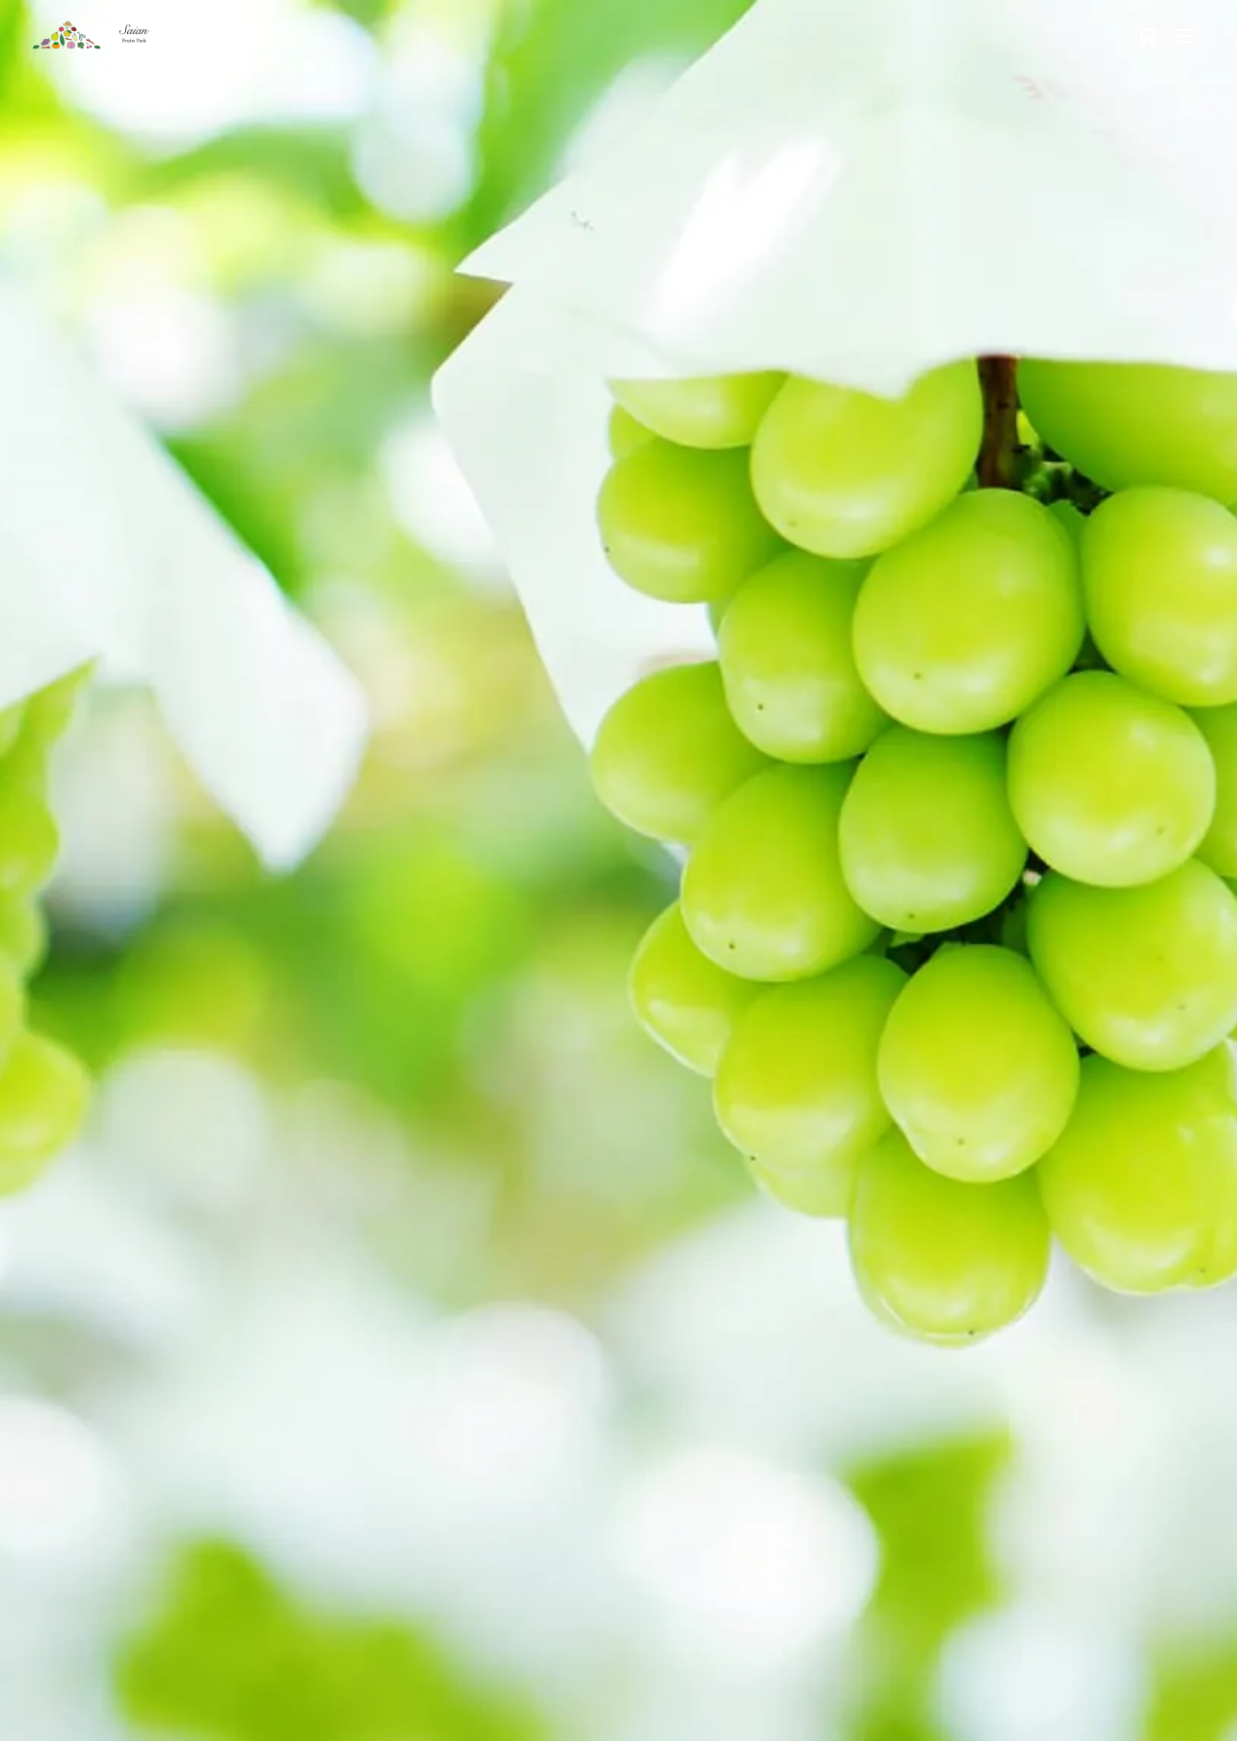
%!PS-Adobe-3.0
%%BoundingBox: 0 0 1237 1741
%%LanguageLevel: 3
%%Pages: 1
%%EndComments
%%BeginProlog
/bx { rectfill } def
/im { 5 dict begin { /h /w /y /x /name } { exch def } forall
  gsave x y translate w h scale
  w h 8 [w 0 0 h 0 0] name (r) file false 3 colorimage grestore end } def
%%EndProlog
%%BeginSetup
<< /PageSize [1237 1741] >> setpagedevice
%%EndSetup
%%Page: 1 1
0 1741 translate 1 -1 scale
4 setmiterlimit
1 setgray
0 0 1237 1741 bx
(image0.raw) 0 0 1237 1741 im
(image1.raw) 32 20 118 30 im
(image2.raw) 1136 26 20 20 im
1177 35 18 2 bx
1177 29 18 2 bx
1177 41 18 2 bx
showpage
%%EOF
